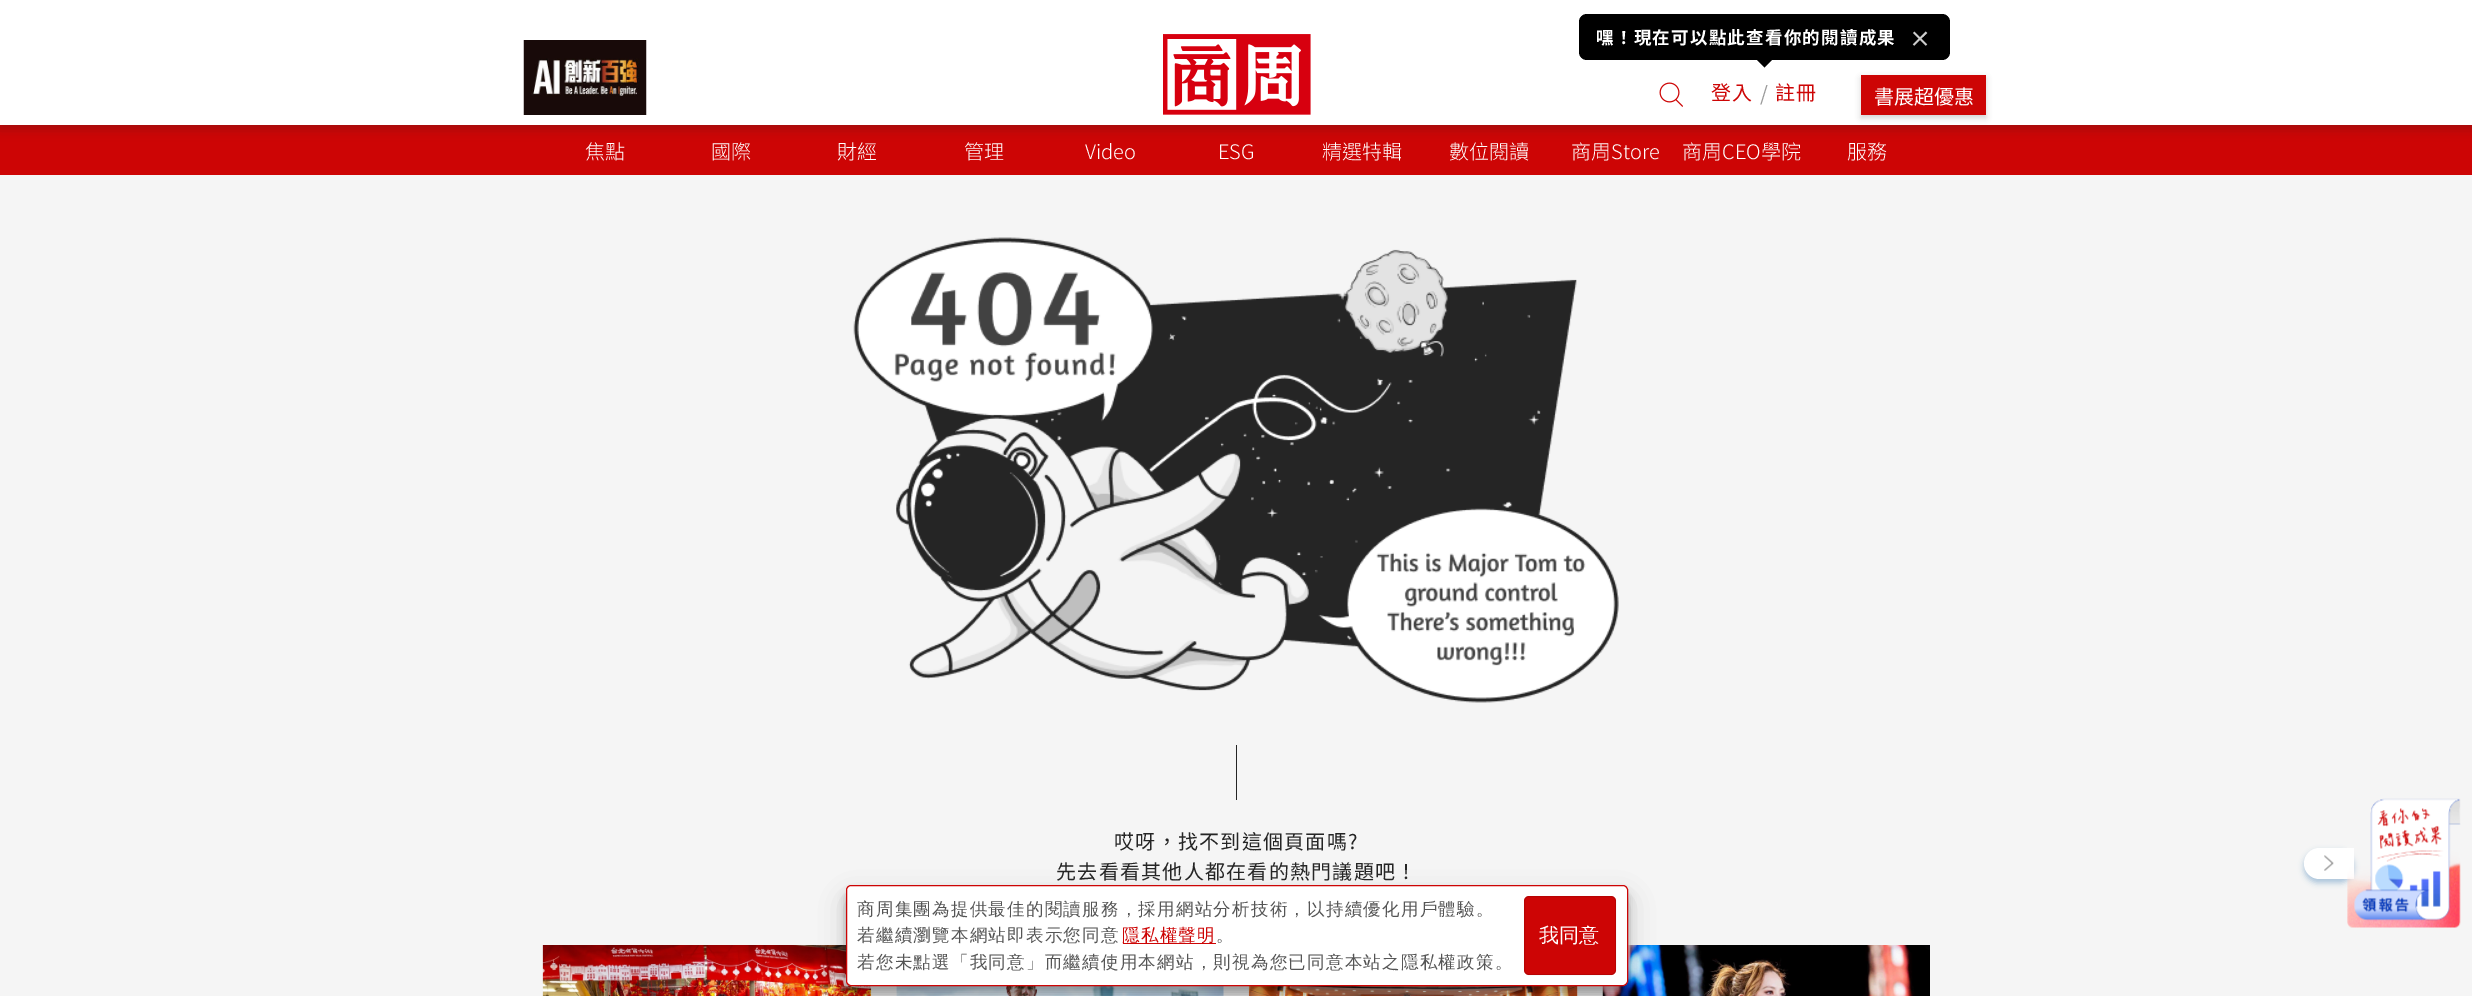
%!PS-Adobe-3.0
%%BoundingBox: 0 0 2472 996
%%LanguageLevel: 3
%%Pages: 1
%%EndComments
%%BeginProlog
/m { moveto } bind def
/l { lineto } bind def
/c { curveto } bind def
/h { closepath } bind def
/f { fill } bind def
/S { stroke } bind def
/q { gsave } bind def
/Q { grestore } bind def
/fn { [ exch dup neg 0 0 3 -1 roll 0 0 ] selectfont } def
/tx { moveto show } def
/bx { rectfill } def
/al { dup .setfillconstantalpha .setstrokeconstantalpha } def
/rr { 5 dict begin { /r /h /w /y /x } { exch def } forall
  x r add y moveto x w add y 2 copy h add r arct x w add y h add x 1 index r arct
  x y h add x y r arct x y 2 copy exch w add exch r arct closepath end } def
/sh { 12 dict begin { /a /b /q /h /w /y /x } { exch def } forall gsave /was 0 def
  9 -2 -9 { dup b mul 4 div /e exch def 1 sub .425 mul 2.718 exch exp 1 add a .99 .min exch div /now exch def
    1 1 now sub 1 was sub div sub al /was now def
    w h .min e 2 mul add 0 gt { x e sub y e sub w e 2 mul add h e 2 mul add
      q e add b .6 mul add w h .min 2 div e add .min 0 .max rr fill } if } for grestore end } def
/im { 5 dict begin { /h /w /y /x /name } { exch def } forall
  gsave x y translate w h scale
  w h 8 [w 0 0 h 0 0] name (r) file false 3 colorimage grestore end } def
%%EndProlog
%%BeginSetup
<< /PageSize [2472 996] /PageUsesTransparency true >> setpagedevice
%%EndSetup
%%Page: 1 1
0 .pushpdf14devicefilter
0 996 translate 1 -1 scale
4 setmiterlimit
0.961 setgray
0 0 2472 996 bx
0.804 0.02 0.02 setrgbcolor
0 125 2472 50 bx
0.145 setgray
0 3 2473 125 0 6 0.3 sh
1 setgray
0 0 2472 125 bx
(image0.raw) 523 40 124 75 im
(image1.raw) 1163 34 148 81 im
0 setgray
1579 14 371 46 8 rr f
/NotoSansTC-Bold 17.5 fn
1 setgray
1596 44 m 1.25 0 (嘿！現在可以點此查看你的閱讀成果) ashow
/NotoSansTC-Bold 22 fn
0.8 setgray
1909 47 m 1.25 0 (×) ashow
0 setgray
1757 60 m 1772 60 l 1764.5 67.5 l h f
/NotoSansTC-Regular 20 fn
0.804 0.02 0.02 setrgbcolor
1711 100 m 1.25 0 (登入) ashow
0.6 setgray
1760 101 m 1.25 0 (/) ashow
0.804 0.02 0.02 setrgbcolor
1775 100 m 1.25 0 (註冊) ashow
(image2.raw) 1659 82 24 25 im
0.145 setgray
1861 78 125 40 0 3 0.2 sh
0.804 0.02 0.02 setrgbcolor
1861 75 125 40 bx
1 setgray
(書展超優惠) 1874 104 tx
/NotoSansTC-Light 20 fn
(焦點) 585 159 tx
(國際) 711 159 tx
(財經) 837 159 tx
(管理) 964 159 tx
(Video) 1085 159 tx
(ESG) 1218 159 tx
(精選特輯) 1322 159 tx
(數位閱讀) 1449 159 tx
(商周Store) 1571 159 tx
(商周CEO學院) 1682 159 tx
(服務) 1847 159 tx
(image3.raw) 853 237 766 466 im
0.145 setgray
1236 745 1 55 bx
/NotoSansTC-Regular 20 fn
1114 849 m 1.25 0 (哎呀，找不到這個頁面嗎?) ashow
1056 879 m 1.25 0 (先去看看其他人都在看的熱門議題吧！) ashow
(image4.raw) 542 945 330 51 im
1 setgray
896 986 328 10 bx
(image5.raw) 896 986 328 10 im
1577 986 1 10 bx
(image6.raw) 1248 986 330 10 im
(image7.raw) 1602 945 328 51 im
0.004 0.325 0.62 setrgbcolor
2304 851 50 32 16 3 0.3 sh
1 setgray
2319.5 848 m 2354 848 l 2354 879 l 2319.5 879 l 2311 879 2304 872 2304 863.5 c 2304 855 2311 848 2319.5 848 c h f
(image8.raw) 2324 855 10 16 im
(image9.raw) 2347 798 114 130 im
0 setgray
846 893 782 101 5 4 0.23 sh
846 898 782 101 5 12.5 0.19 sh
1 setgray
846.5 885.5 781 100 4.5 rr q f Q
0.804 0.02 0.02 setrgbcolor
S
/WenQuanYiZenHei-Medium 17.5 fn
0.333 setgray
857 915 m 1.25 0 (商周集團為提供最佳的閱讀服務，採用網站分析技術，以持續優化用戶體驗。) ashow
857 941 m 1.25 0 (若繼續瀏覽本網站即表示您同意) ashow
0.804 0.02 0.02 setrgbcolor
1123 943 93 1 bx
1122 941 m 1.25 0 (隱私權聲明) ashow
0.333 setgray
1216 941 m 1.25 0 (。) ashow
857 968 m 1.25 0 (若您未點選「我同意」而繼續使用本網站，則視為您已同意本站之隱私權政策。) ashow
0.804 0.02 0.02 setrgbcolor
1524 896 92 79 5 rr f
0.1 al
0 setgray
1524.5 896.5 91 78 4.5 rr S
/WenQuanYiZenHei-Medium 20 fn
1 al
1 setgray
(我同意) 1539 942 tx
.poppdf14devicefilter showpage
%%EOF
